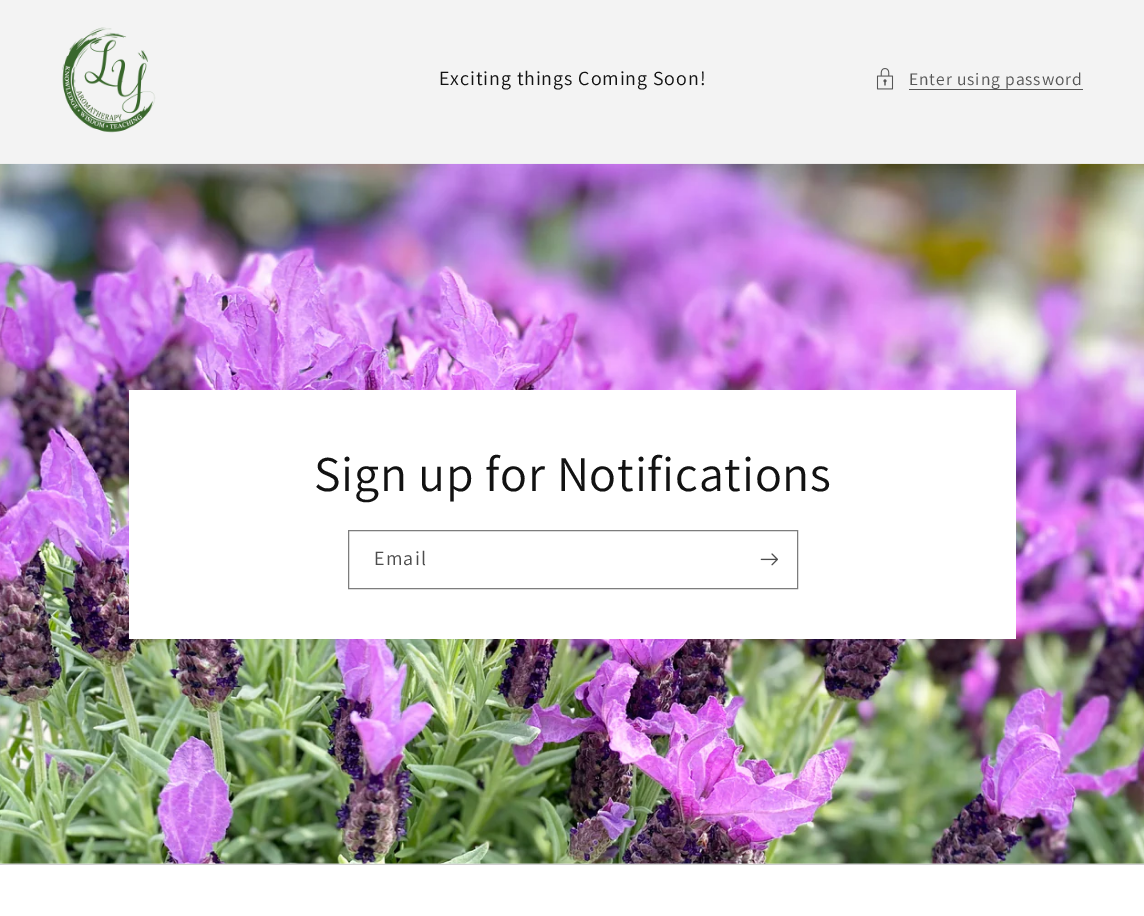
%!PS-Adobe-3.0
%%BoundingBox: 0 0 1144 916
%%LanguageLevel: 3
%%Pages: 1
%%EndComments
%%BeginProlog
/m { moveto } bind def
/fn { [ exch dup neg 0 0 3 -1 roll 0 0 ] selectfont } def
/bx { rectfill } def
/im { 5 dict begin { /h /w /y /x /name } { exch def } forall
  gsave x y translate w h scale
  w h 8 [w 0 0 h 0 0] name (r) file false 3 colorimage grestore end } def
%%EndProlog
%%BeginSetup
<< /PageSize [1144 916] >> setpagedevice
%%EndSetup
%%Page: 1 1
0 916 translate 1 -1 scale
4 setmiterlimit
1 setgray
0 0 1144 916 bx
0.953 setgray
0 0 1144 164 bx
(image0.raw) 62 27 94 106 im
/Assistant-Regular 20 fn
0.071 setgray
439 85 m 0.9 0 (Exciting things Coming Soon!) ashow
(image1.raw) 876 68 18 22 im
/Assistant-Regular 17.5 fn
0.337 setgray
909 85 m 0.9 0 (Enter using password) ashow
909 89 174 1 bx
0.91 setgray
0 863 1144 1 bx
(image2.raw) 0 163 1144 701 im
1 setgray
129 390 887 249 bx
/Assistant-Regular 50 fn
0.071 setgray
314 491 m 0.75 0 (Sign up for Notifications) ashow
0.49 setgray
348.5 530.5 449 58 rectstroke
/Assistant-Regular 20 fn
0.302 setgray
374 565 m 1.25 0 (Email) ashow
(image3.raw) 760 553 18 13 im
0.816 setgray
0 864 1144 1 bx
showpage
%%EOF
